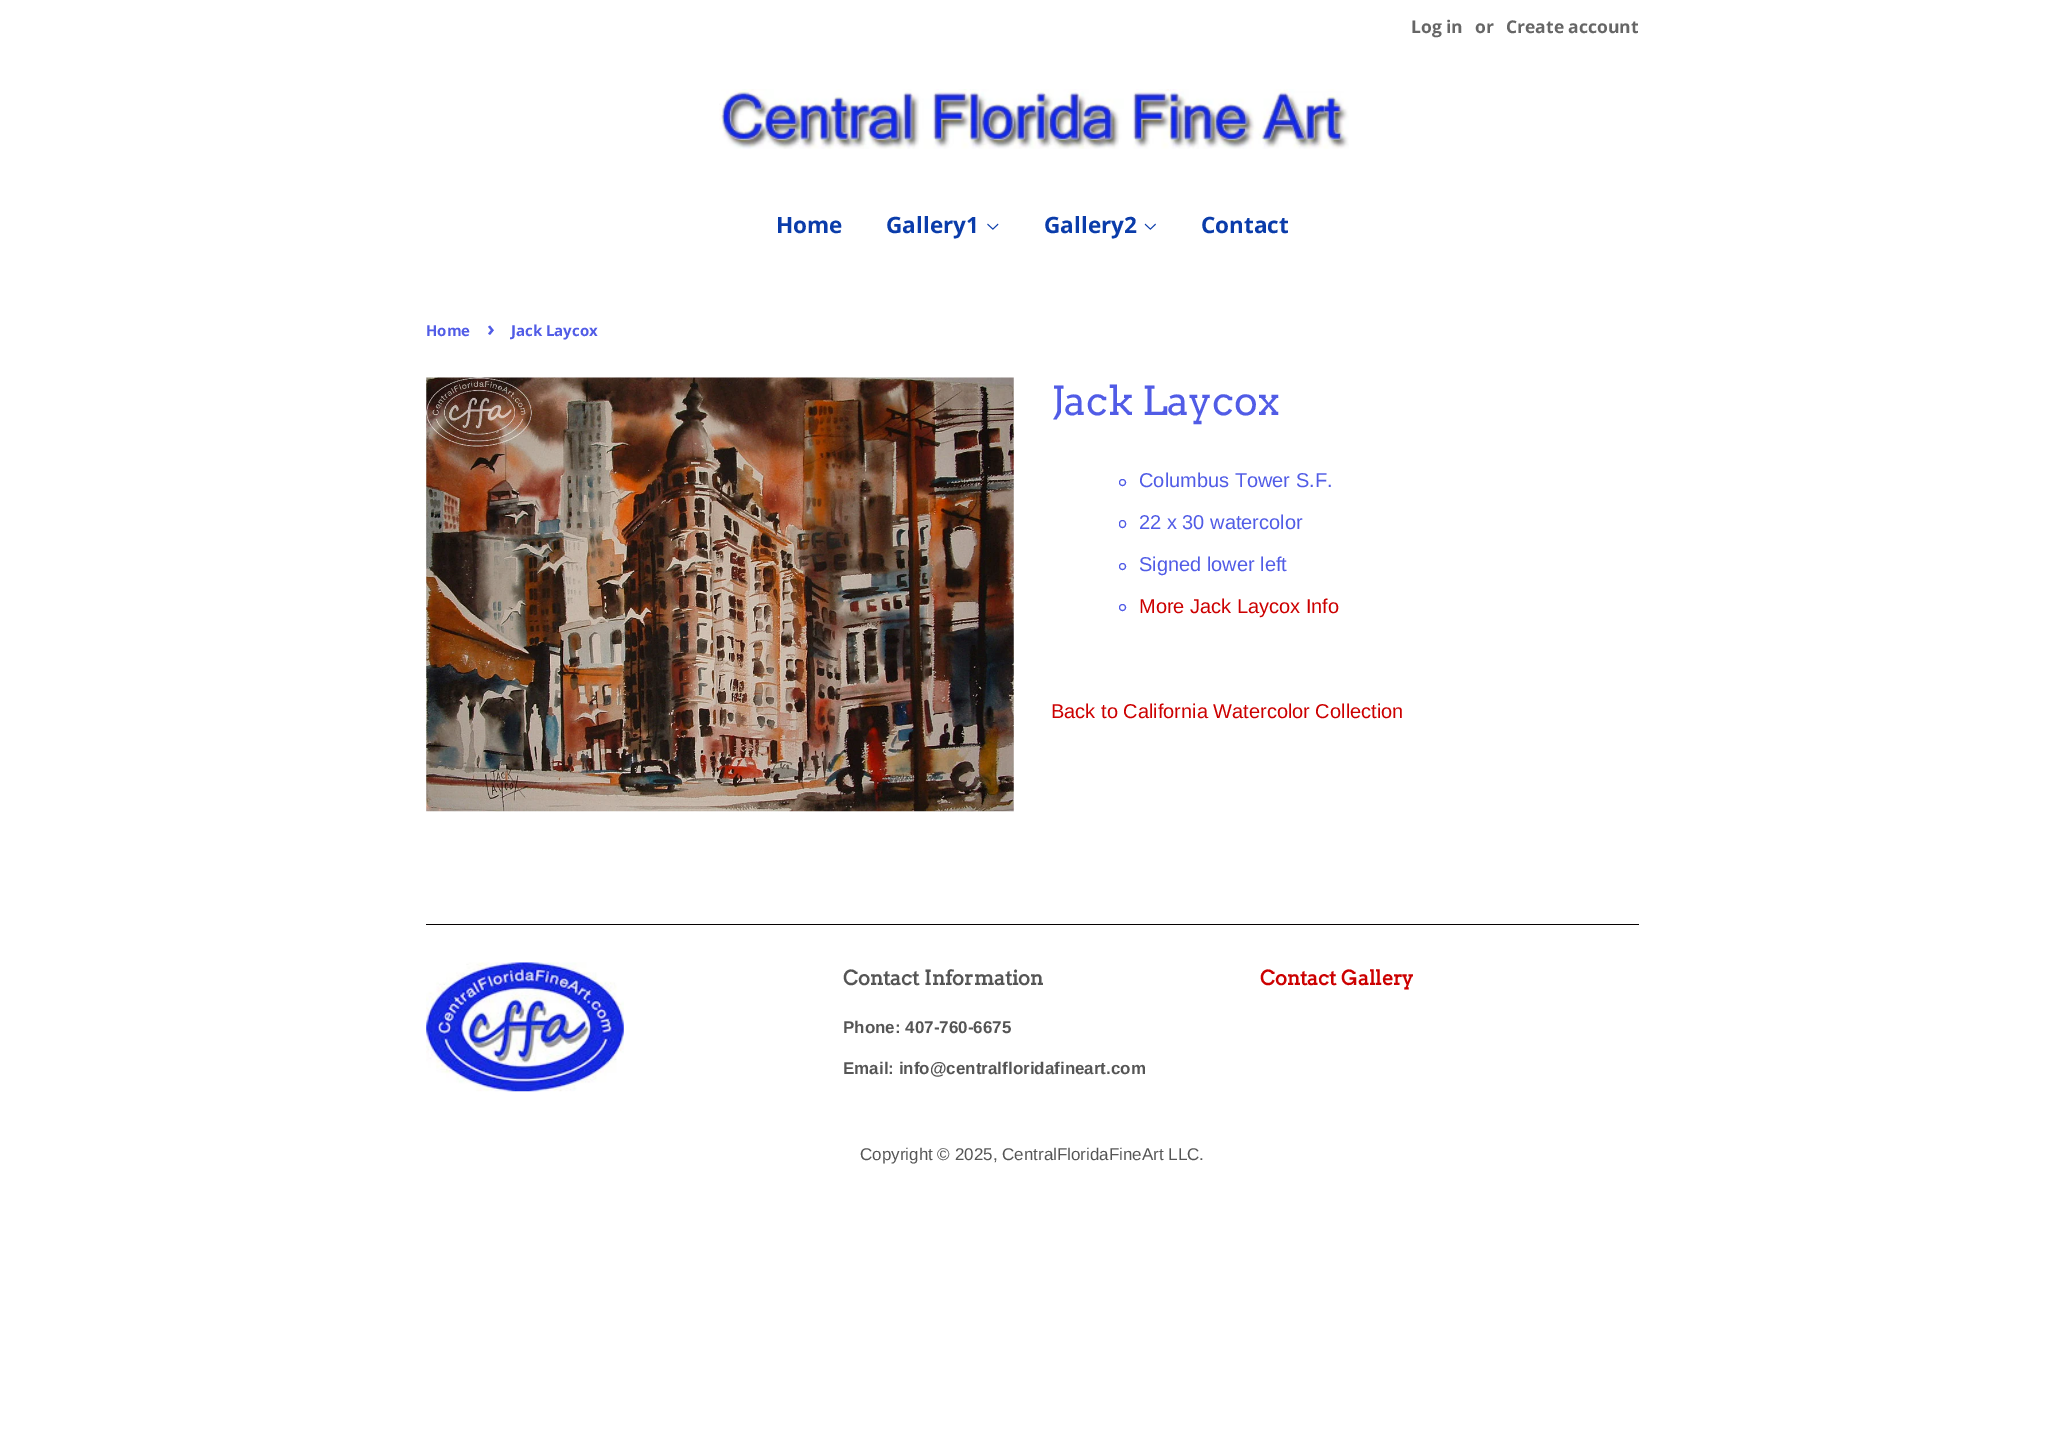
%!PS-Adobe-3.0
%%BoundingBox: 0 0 2064 1450
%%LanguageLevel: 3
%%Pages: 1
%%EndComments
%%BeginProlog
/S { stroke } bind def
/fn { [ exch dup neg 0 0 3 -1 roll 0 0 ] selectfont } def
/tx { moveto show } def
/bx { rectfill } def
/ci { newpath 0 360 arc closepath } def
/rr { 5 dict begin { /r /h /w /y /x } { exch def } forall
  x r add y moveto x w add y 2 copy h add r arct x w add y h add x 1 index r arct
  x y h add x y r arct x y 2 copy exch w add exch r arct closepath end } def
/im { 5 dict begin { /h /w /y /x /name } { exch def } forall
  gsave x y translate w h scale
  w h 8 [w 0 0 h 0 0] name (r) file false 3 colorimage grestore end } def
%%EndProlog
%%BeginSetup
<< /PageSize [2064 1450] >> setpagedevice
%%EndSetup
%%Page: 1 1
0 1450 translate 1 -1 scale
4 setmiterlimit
1 setgray
0 0 2064 1450 bx
/OpenSans-Bold 17.5 fn
0.4 setgray
(Log in) 1411 33 tx
(or) 1475 33 tx
(Create account) 1506 33 tx
(image0.raw) 719 89 630 60 im
/OpenSans-Bold 22.5 fn
0.039 0.235 0.667 setrgbcolor
(Home) 776 233 tx
(Gallery1) 886 233 tx
(image1.raw) 987 223 12 7 im
(Gallery2) 1044 233 tx
(image2.raw) 1144 223 12 7 im
(Contact) 1201 233 tx
/OpenSans-Bold 15 fn
0.318 0.361 0.902 setrgbcolor
(Home) 426 336 tx
/OpenSans-Bold 21 fn
(›) 487 336 tx
/OpenSans-Bold 15 fn
(Jack Laycox) 511 336 tx
(image3.raw) 426 377 588 435 im
/Arvo-Regular 40 fn
(Jack Laycox) 1051 415 tx
1122.5 482.5 3 ci S
/LiberationSans-Regular 20 fn
(Columbus Tower S.F.) 1139 487 tx
1119.5 520.5 6 7 3 rr S
(22 x 30 watercolor) 1139 529 tx
1122.5 566.5 3 ci S
(Signed lower left) 1139 571 tx
1122.5 607.5 3 ci S
0.8 0 0 setrgbcolor
(More Jack Laycox Info) 1139 613 tx
(Back to California Watercolor Collection) 1051 718 tx
0.024 0.004 0.004 setrgbcolor
426 924 1213 1 bx
(image4.raw) 426 962 198 130 im
/Arvo-Bold 20 fn
0.333 setgray
(Contact Information) 843 985 tx
/LiberationSans-Bold 17 fn
(Phone: 407-760-6675) 843 1033 tx
(Email: info@centralfloridafineart.com) 843 1074 tx
/Arvo-Bold 20 fn
0.8 0 0 setrgbcolor
(Contact Gallery) 1260 985 tx
/LiberationSans-Regular 17 fn
0.333 setgray
(Copyright © 2025, CentralFloridaFineArt LLC.) 860 1160 tx
showpage
%%EOF
